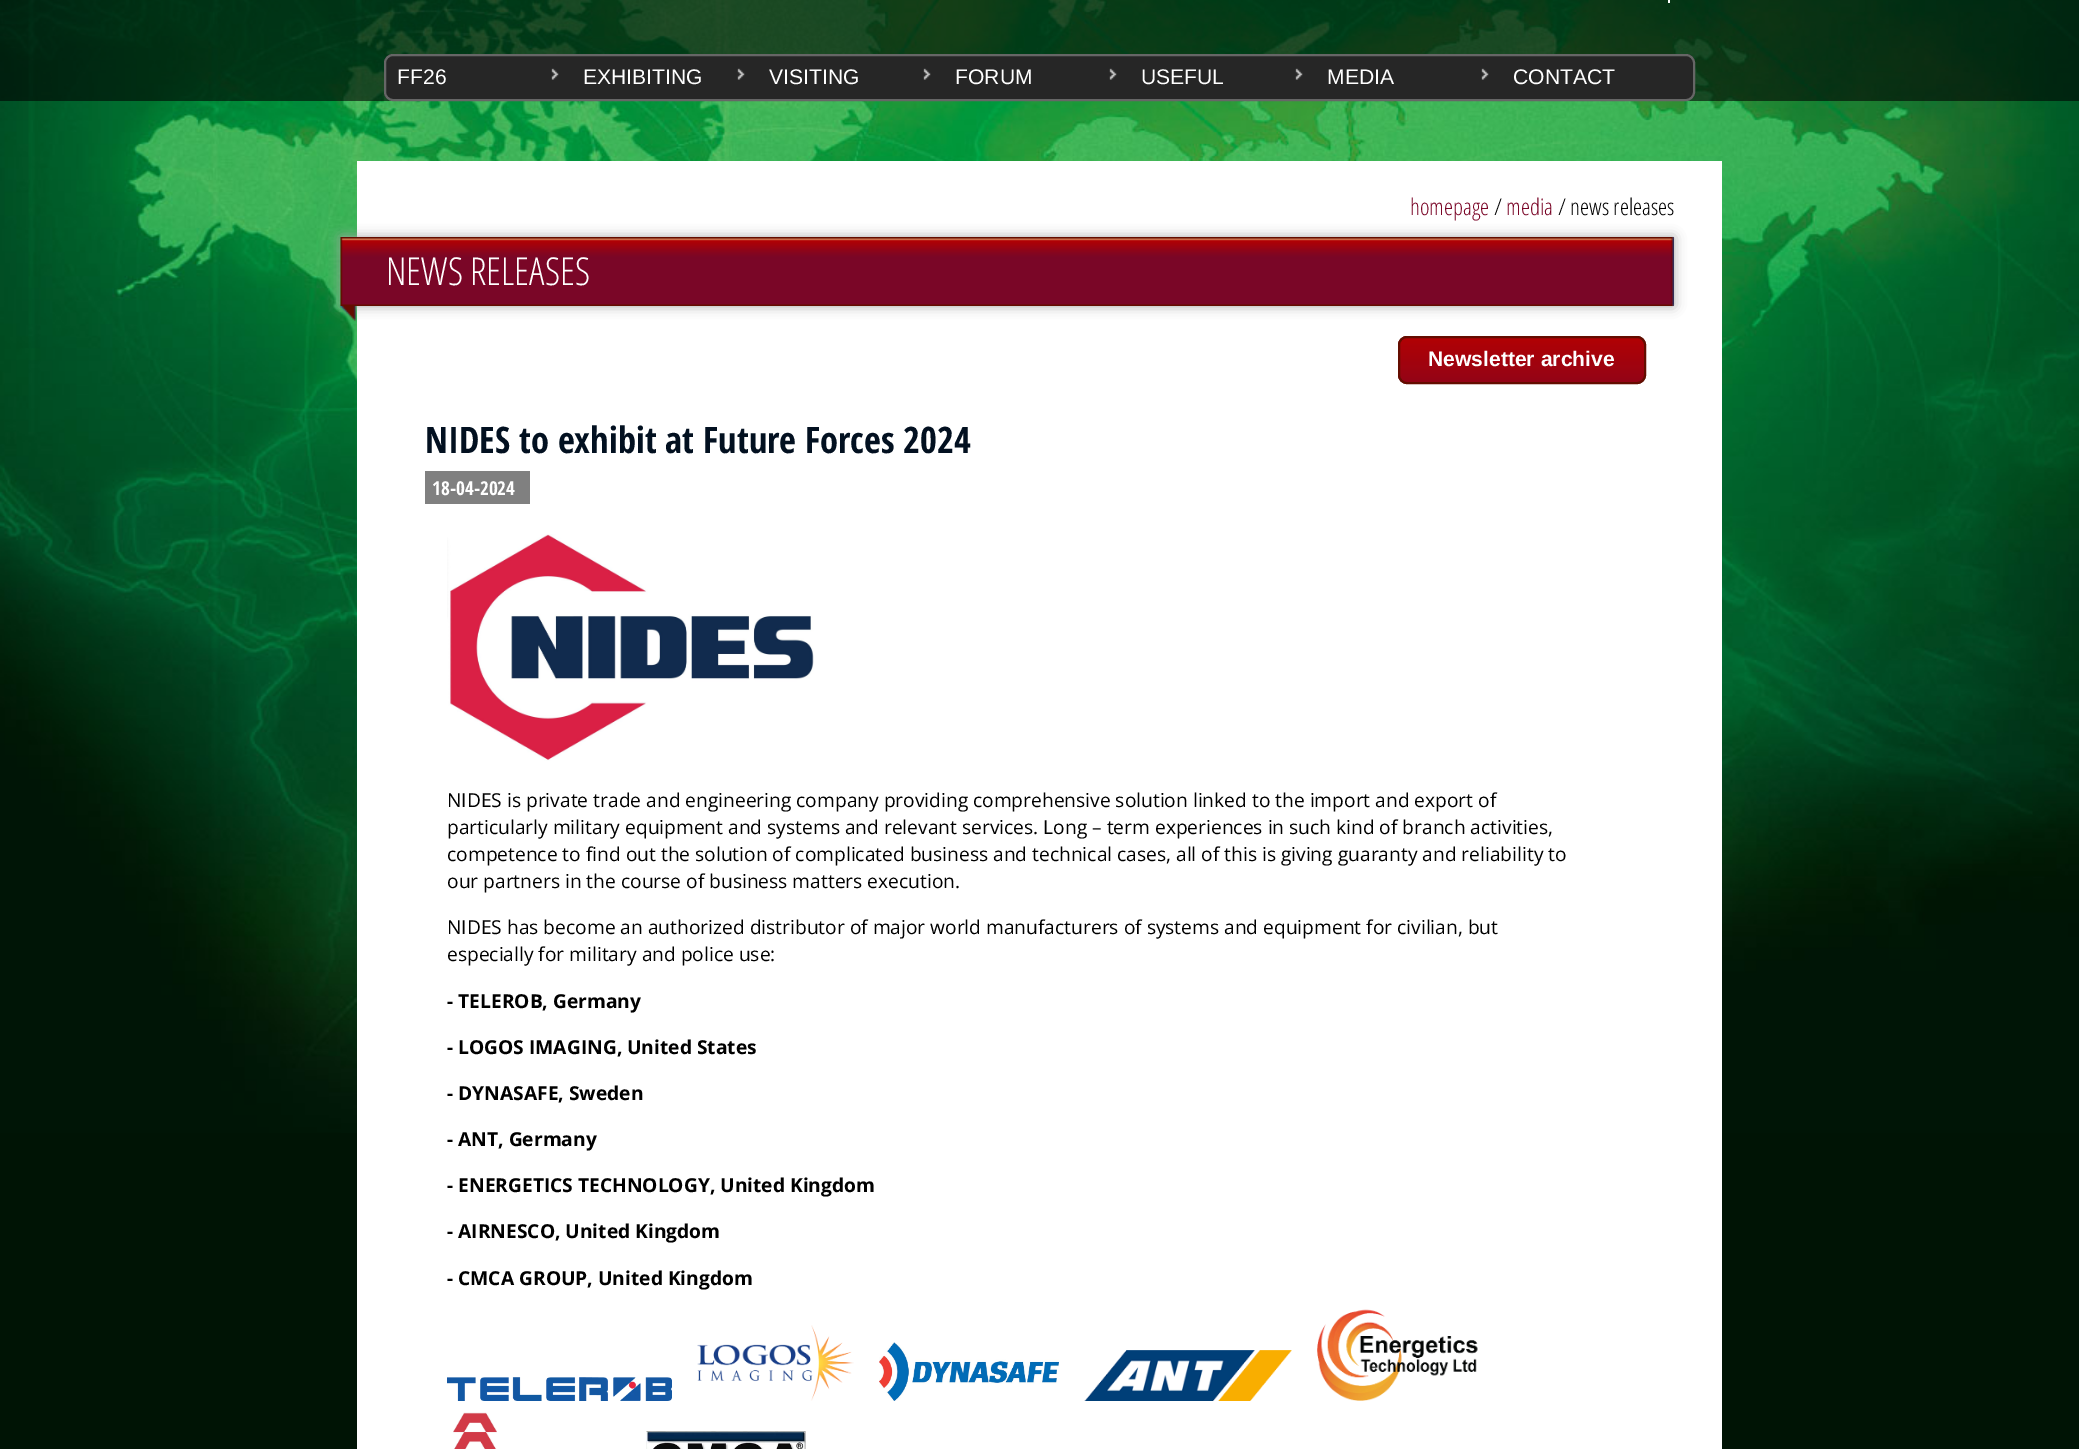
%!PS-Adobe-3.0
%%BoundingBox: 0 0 2079 1449
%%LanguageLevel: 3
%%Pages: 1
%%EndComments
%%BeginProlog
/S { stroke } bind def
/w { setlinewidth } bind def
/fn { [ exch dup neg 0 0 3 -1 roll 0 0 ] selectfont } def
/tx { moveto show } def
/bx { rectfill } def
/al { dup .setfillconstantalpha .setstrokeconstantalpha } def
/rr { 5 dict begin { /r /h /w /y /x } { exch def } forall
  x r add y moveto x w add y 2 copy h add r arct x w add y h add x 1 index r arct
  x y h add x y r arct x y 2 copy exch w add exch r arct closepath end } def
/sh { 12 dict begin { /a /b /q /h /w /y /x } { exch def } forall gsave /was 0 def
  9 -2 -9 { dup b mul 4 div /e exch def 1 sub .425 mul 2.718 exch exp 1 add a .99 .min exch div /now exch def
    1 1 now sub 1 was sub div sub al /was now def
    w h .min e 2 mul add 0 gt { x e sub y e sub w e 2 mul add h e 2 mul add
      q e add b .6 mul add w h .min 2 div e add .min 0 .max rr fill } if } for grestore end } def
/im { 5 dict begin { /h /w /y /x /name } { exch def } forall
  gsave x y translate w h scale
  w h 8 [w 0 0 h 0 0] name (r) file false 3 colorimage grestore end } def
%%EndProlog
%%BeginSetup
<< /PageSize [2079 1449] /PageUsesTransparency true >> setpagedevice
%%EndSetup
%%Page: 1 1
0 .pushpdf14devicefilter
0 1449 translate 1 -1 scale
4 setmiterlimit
0 0.078 0.02 setrgbcolor
0 0 2079 1449 bx
(image0.raw) 0 0 2079 1133 im
0.6 al
0 setgray
0 0 2079 101 bx
1 al
1 setgray
1668 0 2 3 bx
(image1.raw) 384 54 1311 45 im
0.4 setgray
2 w
385 55 1309 45 8 rr S
/LiberationSans-Regular 21.1 fn
1 setgray
(FF26) 397 84 tx
(image2.raw) 551 68 8 12 im
(EXHIBITING) 583 84 tx
(image2.raw) 737 68 8 12 im
(VISITING) 769 84 tx
(image3.raw) 923 68 8 12 im
(FORUM) 955 84 tx
(image3.raw) 1109 68 8 12 im
(USEFUL) 1141 84 tx
(image2.raw) 1295 68 8 12 im
(MEDIA) 1327 84 tx
(image2.raw) 1481 68 8 12 im
(CONTACT) 1513 84 tx
357 161 1365 1288 bx
/OpenSansCondensed-Light 23 fn
0.478 0.024 0.153 setrgbcolor
(homepage) 1410 215 tx
0 setgray
(/) 1494 215 tx
0.478 0.024 0.153 setrgbcolor
(media) 1506 215 tx
0 setgray
(/ news releases) 1558 215 tx
0.651 setgray
341 237 1333 69 0 6 1 sh
(image4.raw) 340 237 1334 69 im
/OpenSansCondensed-Light 38.5 fn
1 setgray
(NEWS RELEASES) 386 285 tx
(image5.raw) 340 306 17 15 im
(image6.raw) 1398 336 248 48 im
0.392 0.051 0 setrgbcolor
1399 337 246 46 8 rr S
/LiberationSans-Bold 21.1 fn
1 setgray
(Newsletter archive) 1428 366 tx
/OpenSansCondensed-Bold 36.5 fn
0.008 0.063 0.125 setrgbcolor
(NIDES to exhibit at Future Forces 2024) 425 453 tx
0.502 setgray
425 471 105 33 bx
/OpenSansCondensed-Bold 19.2 fn
1 setgray
(18-04-2024) 432 495 tx
(image7.raw) 447 534 367 227 im
/OpenSans-Regular 19.2 fn
0 setgray
(NIDES is private trade and engineering company providing comprehensive solution linked to the import and export of) 447 807 tx
(particularly military equipment and systems and relevant services. Long – term experiences in such kind of branch activities,) 447 834 tx
(competence to find out the solution of complicated business and technical cases, all of this is giving guaranty and reliability to) 447 861 tx
(our partners in the course of business matters execution.) 447 888 tx
(NIDES has become an authorized distributor of major world manufacturers of systems and equipment for civilian, but) 447 934 tx
(especially for military and police use:) 447 961 tx
/OpenSans-Bold 19.2 fn
(- TELEROB, Germany) 447 1008 tx
(- LOGOS IMAGING, United States) 447 1054 tx
(- DYNASAFE, Sweden) 447 1100 tx
(- ANT, Germany) 447 1146 tx
(- ENERGETICS TECHNOLOGY, United Kingdom) 447 1192 tx
(- AIRNESCO, United Kingdom) 447 1238 tx
(- CMCA GROUP, United Kingdom) 447 1285 tx
(image8.raw) 447 1377 225 24 im
(image9.raw) 697 1325 157 76 im
(image10.raw) 879 1342 180 59 im
(image11.raw) 1084 1350 208 51 im
(image12.raw) 1317 1309 161 92 im
(image13.raw) 453 1412 44 37 im
(image14.raw) 646 1431 160 18 im
.poppdf14devicefilter showpage
%%EOF
